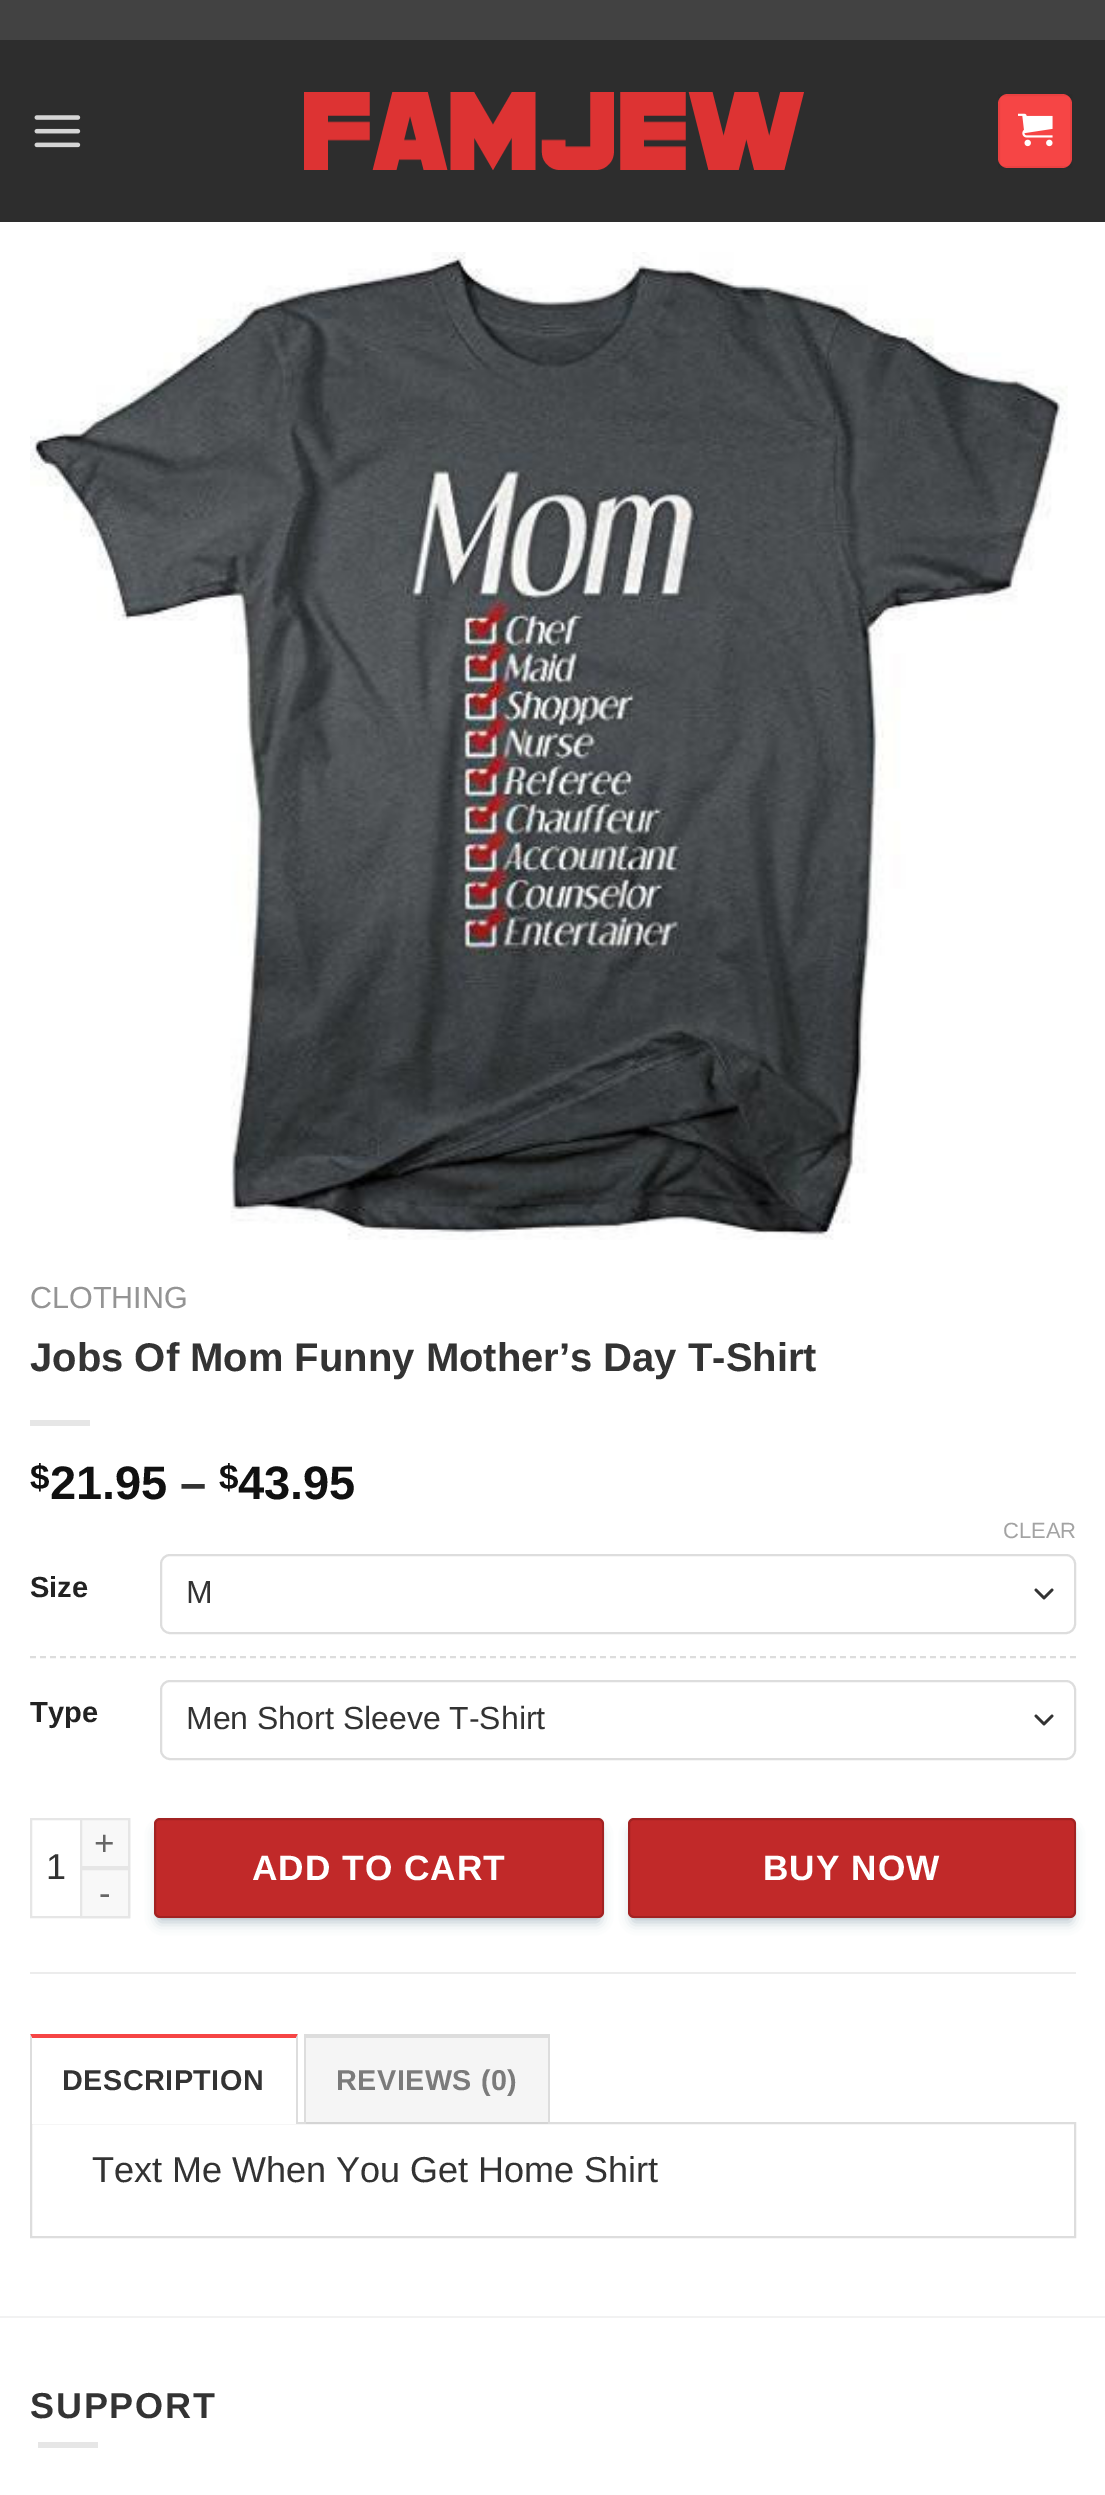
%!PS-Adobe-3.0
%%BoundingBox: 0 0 1105 2495
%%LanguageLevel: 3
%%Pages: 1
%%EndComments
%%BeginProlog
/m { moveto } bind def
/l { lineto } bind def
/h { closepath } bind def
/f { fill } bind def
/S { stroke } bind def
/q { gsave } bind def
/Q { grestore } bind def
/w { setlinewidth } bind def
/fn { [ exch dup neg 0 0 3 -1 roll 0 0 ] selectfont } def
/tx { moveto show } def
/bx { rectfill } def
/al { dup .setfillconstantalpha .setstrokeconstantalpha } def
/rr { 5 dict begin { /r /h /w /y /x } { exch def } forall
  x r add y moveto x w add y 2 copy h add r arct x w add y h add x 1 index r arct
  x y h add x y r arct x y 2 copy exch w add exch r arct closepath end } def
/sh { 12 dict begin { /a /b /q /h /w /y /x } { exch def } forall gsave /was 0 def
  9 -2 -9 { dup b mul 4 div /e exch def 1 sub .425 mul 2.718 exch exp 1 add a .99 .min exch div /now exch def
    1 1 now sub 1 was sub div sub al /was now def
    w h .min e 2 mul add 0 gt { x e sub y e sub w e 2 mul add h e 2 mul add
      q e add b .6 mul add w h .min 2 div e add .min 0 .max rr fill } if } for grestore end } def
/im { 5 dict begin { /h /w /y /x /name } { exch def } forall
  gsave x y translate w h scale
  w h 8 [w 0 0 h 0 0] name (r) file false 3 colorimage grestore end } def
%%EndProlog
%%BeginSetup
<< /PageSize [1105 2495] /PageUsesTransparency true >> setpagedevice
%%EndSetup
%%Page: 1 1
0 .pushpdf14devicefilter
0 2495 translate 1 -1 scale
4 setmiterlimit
1 setgray
0 0 1105 2495 bx
0.259 setgray
0 0 1105 40 bx
0.176 setgray
0 40 1105 182 bx
(image0.raw) 34 115 47 33 im
(image1.raw) 304 92 500 78 im
0.965 0.271 0.271 setrgbcolor
998 94 74 74 10 rr f
0.05 al
0 setgray
2 w
999 95 72 72 rectstroke
1 al
(image2.raw) 1018 113 35 34 im
(image3.raw) 30 252 1038 988 im
/LiberationSans-Regular 30.5 fn
0.58 setgray
(CLOTHING) 30 1308 tx
/LiberationSans-Bold 40 fn
0.2 setgray
(Jobs Of Mom Funny Mother’s Day T-Shirt) 30 1371 tx
0.902 setgray
30 1420 60 6 bx
/LiberationSans-Bold 35 fn
0.067 setgray
($) 30 1489 tx
/LiberationSans-Bold 47 fn
(21.95) 50 1499 tx
0.2 setgray
(–) 180 1499 tx
/LiberationSans-Bold 35 fn
0.067 setgray
($) 219 1489 tx
/LiberationSans-Bold 47 fn
(43.95) 238 1499 tx
0.867 setgray
[6 4] 0 setdash
30 1657 m 1076 1657 l S
/LiberationSans-Bold 29 fn
0.133 setgray
(Type) 30 1722 tx
/LiberationSans-Regular 22 fn
0.639 setgray
(CLEAR) 1003 1538 tx
0.2 setgray
2.7 w
1 setlinecap
1 setlinejoin
[] 0 setdash
1036 1716 m 1044 1724 l 1052 1716 l S
0.867 setgray
2 w
0 setlinecap
0 setlinejoin
161 1681 914 78 9 rr S
/LiberationSans-Regular 32 fn
0.2 setgray
(Men Short Sleeve T-Shirt) 186 1729 tx
/LiberationSans-Bold 29 fn
0.133 setgray
(Size) 30 1597 tx
0.2 setgray
2.7 w
1 setlinecap
1 setlinejoin
1036 1590 m 1044 1598 l 1052 1590 l S
0.867 setgray
2 w
0 setlinecap
0 setlinejoin
161 1555 914 78 9 rr S
/LiberationSans-Regular 32 fn
0.2 setgray
(M) 186 1603 tx
0.902 setgray
31 1819 98 98 rectstroke
0.973 setgray
81 1819 m 129 1819 l 129 1867 l 81 1867 l h q f Q
0.902 setgray
S
/LiberationSans-Regular 35 fn
0.4 setgray
94 1855 m 1 0 (+) ashow
/LiberationSans-Regular 36 fn
0.2 setgray
(1) 46 1879 tx
0.973 setgray
81 1869 m 129 1869 l 129 1917 l 81 1917 l h q f Q
0.902 setgray
S
/LiberationSans-Regular 35 fn
0.4 setgray
99 1905 m 1 0 (-) ashow
0.137 0.263 0.361 setrgbcolor
158 1830 442 92 2 6 0.32 sh
0.757 0.161 0.161 setrgbcolor
154 1818 450 100 6 rr f
0.16 al
0 setgray
155 1819 448 98 5 rr S
/LiberationSans-Bold 35.25 fn
1 al
1 setgray
252 1880 m 1 0 (ADD TO CART) ashow
0.137 0.263 0.361 setrgbcolor
632 1830 440 92 2 6 0.32 sh
0.757 0.161 0.161 setrgbcolor
628 1818 448 100 6 rr f
0.16 al
0 setgray
629 1819 446 98 5 rr S
1 al
1 setgray
763 1880 m 1 0 (BUY NOW) ashow
0.925 setgray
30 1972 1046 2 bx
0.867 setgray
31 2123 1044 114 rectstroke
1 setgray
30 2122 268 2 bx
0.965 0.271 0.271 setrgbcolor
30 2034 m 298 2034 l 296 2038 l 32 2038 l h f
0.867 setgray
298 2034 m 298 2124 l 296 2124 l 296 2038 l h f
30 2124 m 30 2034 l 32 2038 l 32 2124 l h f
/LiberationSans-Bold 28.75 fn
0.2 setgray
62 2090 m 0.5 0 (DESCRIPTION) ashow
0.04 al
0 setgray
306 2038 242 86 bx
1 al
0.867 setgray
304 2034 246 4 bx
548 2034 2 90 bx
304 2034 2 90 bx
0.482 setgray
336 2090 m 0.5 0 (REVIEWS \(0\)) ashow
/LiberationSans-Regular 36 fn
0.2 setgray
(Text Me When You Get Home Shirt) 92 2182 tx
0.949 setgray
0 2316 1105 2 bx
/LiberationSans-Bold 36 fn
0.2 setgray
30 2418 m 1.75 0 (SUPPORT) ashow
0.902 setgray
38 2442 60 6 bx
.poppdf14devicefilter showpage
%%EOF
